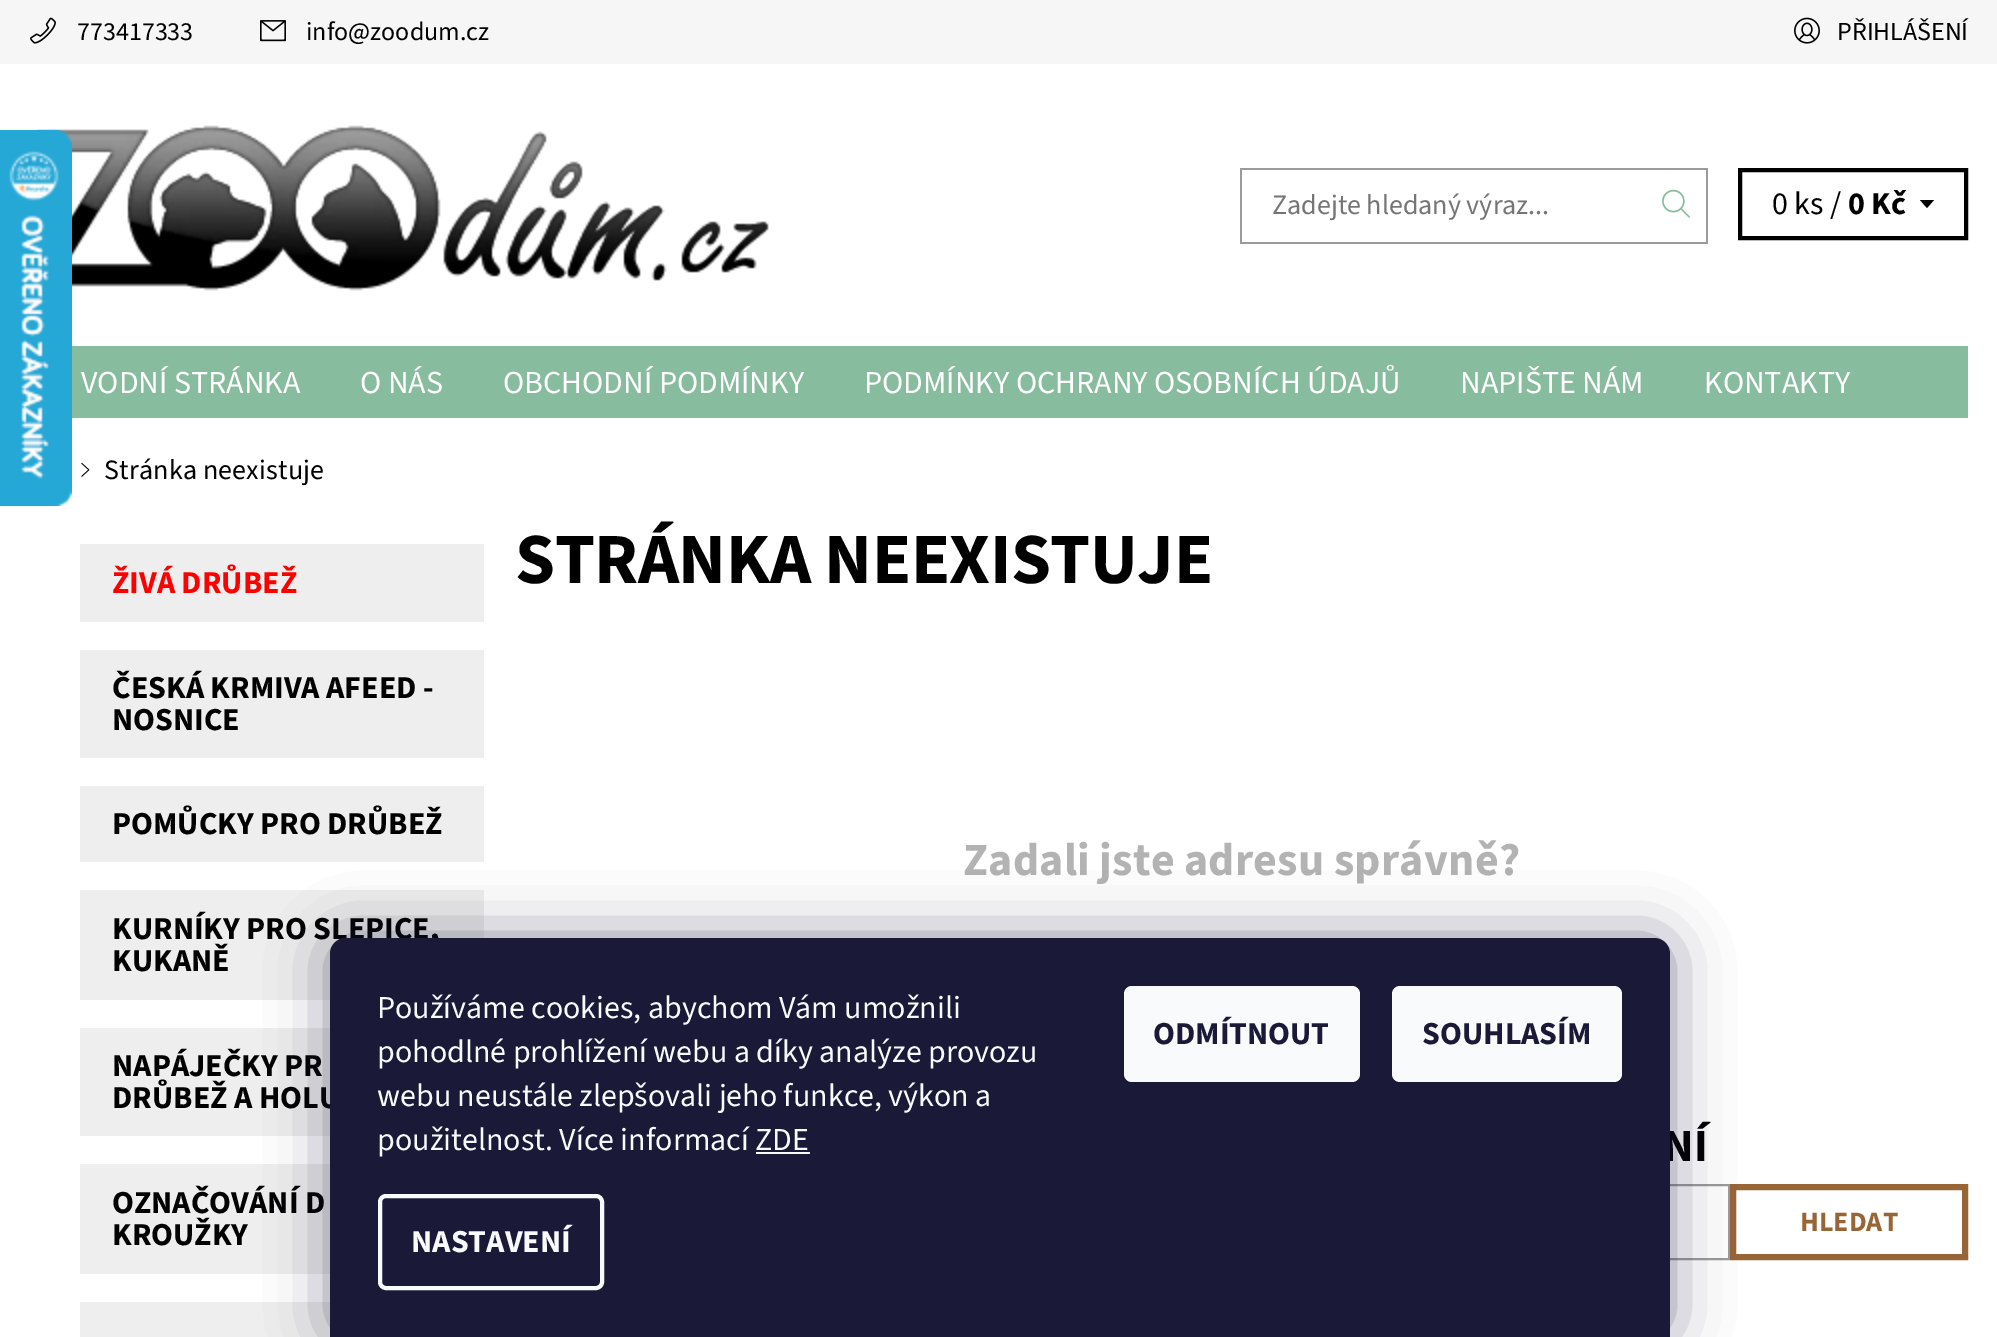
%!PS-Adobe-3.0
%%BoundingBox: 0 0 1997 1337
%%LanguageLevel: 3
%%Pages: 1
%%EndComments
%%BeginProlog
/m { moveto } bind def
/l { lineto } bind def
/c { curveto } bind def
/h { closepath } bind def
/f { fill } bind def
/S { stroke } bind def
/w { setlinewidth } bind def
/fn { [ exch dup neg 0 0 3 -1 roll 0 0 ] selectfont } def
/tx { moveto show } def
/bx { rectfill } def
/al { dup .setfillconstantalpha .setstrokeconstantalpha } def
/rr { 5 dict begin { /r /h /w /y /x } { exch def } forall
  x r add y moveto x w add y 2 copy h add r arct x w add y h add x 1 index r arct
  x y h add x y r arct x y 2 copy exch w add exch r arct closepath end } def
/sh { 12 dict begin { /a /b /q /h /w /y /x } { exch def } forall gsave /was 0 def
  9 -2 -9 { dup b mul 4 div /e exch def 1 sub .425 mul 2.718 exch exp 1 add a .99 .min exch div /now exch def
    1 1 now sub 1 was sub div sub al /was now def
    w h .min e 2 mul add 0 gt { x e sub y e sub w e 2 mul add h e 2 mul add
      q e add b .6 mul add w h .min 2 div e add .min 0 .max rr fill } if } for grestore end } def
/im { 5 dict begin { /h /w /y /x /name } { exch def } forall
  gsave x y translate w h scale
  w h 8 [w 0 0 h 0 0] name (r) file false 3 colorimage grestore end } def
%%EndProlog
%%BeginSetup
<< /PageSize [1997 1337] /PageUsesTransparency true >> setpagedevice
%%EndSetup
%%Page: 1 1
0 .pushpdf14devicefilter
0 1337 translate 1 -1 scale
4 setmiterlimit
1 setgray
0 0 1997 1337 bx
(image4.raw) 36 125 733 166 im
(image0.raw) 0 130 72 376 im
0.965 setgray
0 0 1997 64 bx
(image1.raw) 30 17 26 27 im
/SourceSans3-Regular 26 fn
0 setgray
(773417333) 77 40 tx
(image2.raw) 260 20 26 22 im
(info@zoodum.cz) 306 40 tx
(image3.raw) 1794 17 26 27 im
(PŘIHLÁŠENÍ) 1837 40 tx
0.608 setgray
1240 168 468 2 bx
1240 242 406 2 bx
1240 168 2 76 bx
/SourceSans3-Regular 28 fn
0.459 setgray
(Zadejte hledaný výraz...) 1272 214 tx
0.608 setgray
1706 168 2 76 bx
1646 242 62 2 bx
(image5.raw) 1662 189 28 29 im
0 setgray
4 w
1740 170 226 68 rectstroke
/SourceSans3-Regular 32 fn
(0 ks /) 1772 214 tx
/SourceSans3-Bold 32 fn
(0 Kč) 1848 214 tx
1927 200 m 1934 200 l 1927 208 l 1920 200 l h f
0.529 0.737 0.624 setrgbcolor
72 346 1896 72 bx
/SourceSans3-Regular 32 fn
1 setgray
(VODNÍ STRÁNKA) 81 393 tx
(O NÁS) 360 393 tx
(OBCHODNÍ PODMÍNKY) 503 393 tx
(PODMÍNKY OCHRANY OSOBNÍCH ÚDAJŮ) 864 393 tx
(NAPIŠTE NÁM) 1460 393 tx
(KONTAKTY) 1704 393 tx
(image6.raw) 81 462 9 15 im
/SourceSans3-Regular 28 fn
0 setgray
104 479 m 0.2 0 (Stránka neexistuje) ashow
0.933 setgray
80 544 404 78 bx
/SourceSans3-Bold 32 fn
1 0 0 setrgbcolor
(ŽIVÁ DRŮBEŽ) 112 593 tx
0.933 setgray
80 650 404 108 bx
0 setgray
(ČESKÁ KRMIVA AFEED -) 112 698 tx
(NOSNICE) 112 730 tx
0.933 setgray
80 786 404 76 bx
0 setgray
(POMŮCKY PRO DRŮBEŽ) 112 834 tx
0.933 setgray
80 890 404 110 bx
0 setgray
(KURNÍKY PRO SLEPICE,) 112 939 tx
(KUKANĚ) 112 971 tx
0.933 setgray
80 1028 250 108 bx
0 setgray
(NAPÁJEČKY PR) 112 1076 tx
(DRŮBEŽ A HOLU) 112 1108 tx
0.933 setgray
80 1164 250 110 bx
0 setgray
(OZNAČOVÁNÍ D) 112 1213 tx
(KROUŽKY) 112 1245 tx
0.933 setgray
80 1302 250 35 bx
/SourceSans3-Bold 72 fn
0 setgray
515 583 m -0.5 0 (STRÁNKA NEEXISTUJE) ashow
/SourceSans3-Bold 46 fn
0.702 setgray
963 875 m 0.2 0 (Zadali jste adresu správně?) ashow
0 setgray
(NÍ) 1663 1161 tx
0.608 setgray
2 w
1257 1185 472 74 rectstroke
0.596 0.396 0.212 setrgbcolor
4 w
1734 1188 230 68 rectstroke
2 w
1731 1185 236 74 rectstroke
/SourceSans3-Bold 28 fn
(HLEDAT) 1800 1231 tx
0.106 0.098 0.224 setrgbcolor
330 938 1340 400 16 30 0.5 sh
0.102 0.098 0.216 setrgbcolor
346 938 m 1654 938 l 1663 938 1670 945 1670 954 c 1670 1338 l 330 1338 l 330 954 l 330 945 337 938 346 938 c h f
/SourceSans3-Regular 32 fn
0.973 0.98 0.984 setrgbcolor
(Používáme cookies, abychom Vám umožnili) 377 1018 tx
(pohodlné prohlížení webu a díky analýze provozu) 377 1062 tx
(webu neustále zlepšovali jeho funkce, výkon a) 377 1106 tx
(použitelnost. Více informací ZDE) 377 1150 tx
756 1152 54 2 bx
4 w
380 1196 222 92 6 rr S
/SourceSans3-Bold 32 fn
(NASTAVENÍ) 411 1252 tx
1124 986 236 96 8 rr f
0.102 0.098 0.216 setrgbcolor
(ODMÍTNOUT) 1153 1044 tx
0.973 0.98 0.984 setrgbcolor
1392 986 230 96 8 rr f
0.102 0.098 0.216 setrgbcolor
(SOUHLASÍM) 1422 1044 tx
.poppdf14devicefilter showpage
%%EOF
